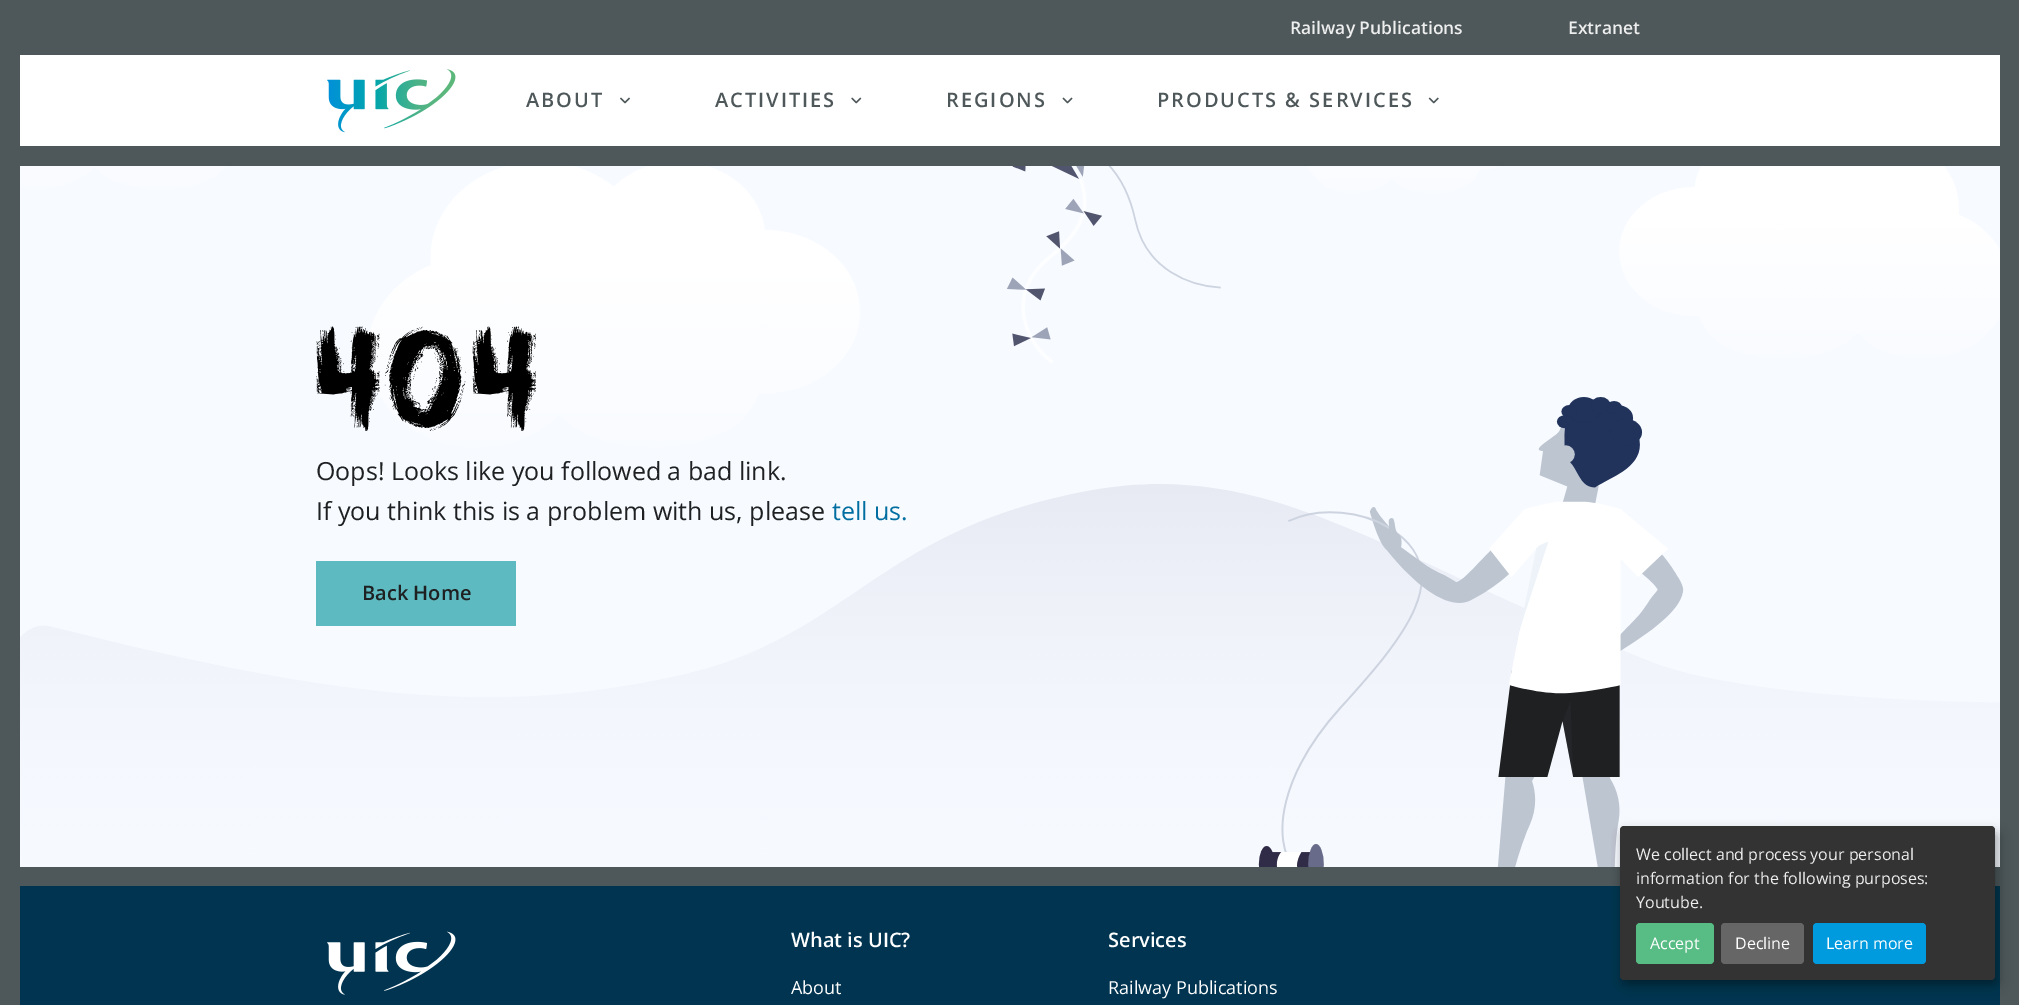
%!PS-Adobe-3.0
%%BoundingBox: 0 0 2019 1005
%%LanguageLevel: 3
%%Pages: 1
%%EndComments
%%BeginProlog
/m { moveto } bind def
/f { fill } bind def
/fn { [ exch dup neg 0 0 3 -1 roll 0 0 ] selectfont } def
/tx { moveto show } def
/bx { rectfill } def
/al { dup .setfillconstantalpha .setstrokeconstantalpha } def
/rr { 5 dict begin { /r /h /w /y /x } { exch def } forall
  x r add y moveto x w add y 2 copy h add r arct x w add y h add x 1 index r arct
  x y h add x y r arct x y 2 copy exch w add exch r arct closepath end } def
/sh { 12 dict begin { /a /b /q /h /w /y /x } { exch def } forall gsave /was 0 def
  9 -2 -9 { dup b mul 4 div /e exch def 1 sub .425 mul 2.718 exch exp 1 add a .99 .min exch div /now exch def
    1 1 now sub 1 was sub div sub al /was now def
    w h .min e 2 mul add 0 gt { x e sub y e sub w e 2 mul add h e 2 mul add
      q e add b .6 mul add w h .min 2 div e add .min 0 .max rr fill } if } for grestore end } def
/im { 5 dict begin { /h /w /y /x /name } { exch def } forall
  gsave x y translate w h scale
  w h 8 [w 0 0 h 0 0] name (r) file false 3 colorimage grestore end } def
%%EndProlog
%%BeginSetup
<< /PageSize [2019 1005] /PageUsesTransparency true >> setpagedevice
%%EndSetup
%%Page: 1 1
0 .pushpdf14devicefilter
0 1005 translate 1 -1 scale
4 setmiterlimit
0.306 0.341 0.349 setrgbcolor
0 0 2019 1005 bx
/OpenSans-SemiBold 17.5 fn
0.933 setgray
(Railway Publications) 1290 34 tx
(Extranet) 1568 34 tx
1 setgray
20 55 1980 91 bx
(image0.raw) 327 69 129 64 im
/OpenSans-SemiBold 20 fn
0.306 0.341 0.349 setrgbcolor
526 107 m 2 0 (ABOUT) ashow
(image1.raw) 620 97 10 7 im
715 107 m 2 0 (ACTIVITIES) ashow
(image2.raw) 851 97 11 7 im
946 107 m 2 0 (REGIONS) ashow
(image3.raw) 1062 97 11 7 im
1157 107 m 2 0 (PRODUCTS & SERVICES) ashow
(image4.raw) 1428 97 11 7 im
(image5.raw) 20 166 1980 701 im
(image6.raw) 316 326 220 105 im
/OpenSans-Regular 25 fn
0.118 0.125 0.133 setrgbcolor
(Oops! Looks like you followed a bad link.) 316 480 tx
(If you think this is a problem with us, please) 316 520 tx
0 0.431 0.631 setrgbcolor
(tell us.) 832 520 tx
0.361 0.729 0.753 setrgbcolor
316 561 200 65 bx
/OpenSans-SemiBold 20 fn
0.118 0.125 0.133 setrgbcolor
(Back Home) 362 600 tx
0 0.204 0.314 setrgbcolor
20 886 1980 119 bx
(image7.raw) 327 931 129 64 im
1 setgray
(What is UIC?) 791 947 tx
/OpenSans-Regular 18 fn
(About) 791 994 tx
/OpenSans-SemiBold 20 fn
(Services) 1108 947 tx
/OpenSans-Regular 18 fn
(Railway Publications) 1108 994 tx
0 setgray
1626 833 375 153 4 6 0.19 sh
1620 831 375 154 4 4 0.2 sh
0.2 setgray
1620 826 375 154 4 rr f
/OpenSans-Regular 16 fn
0.933 setgray
(We collect and process your personal) 1636 860 tx
(information for the following purposes:) 1636 884 tx
(Youtube.) 1636 908 tx
0.341 0.741 0.518 setrgbcolor
1636 923 78 41 4 rr f
1 setgray
(Accept) 1650 949 tx
0.4 setgray
1721 923 83 41 4 rr f
1 setgray
(Decline) 1735 949 tx
0 0.608 0.875 setrgbcolor
1813 923 113 41 4 rr f
1 setgray
(Learn more) 1826 949 tx
.poppdf14devicefilter showpage
%%EOF
